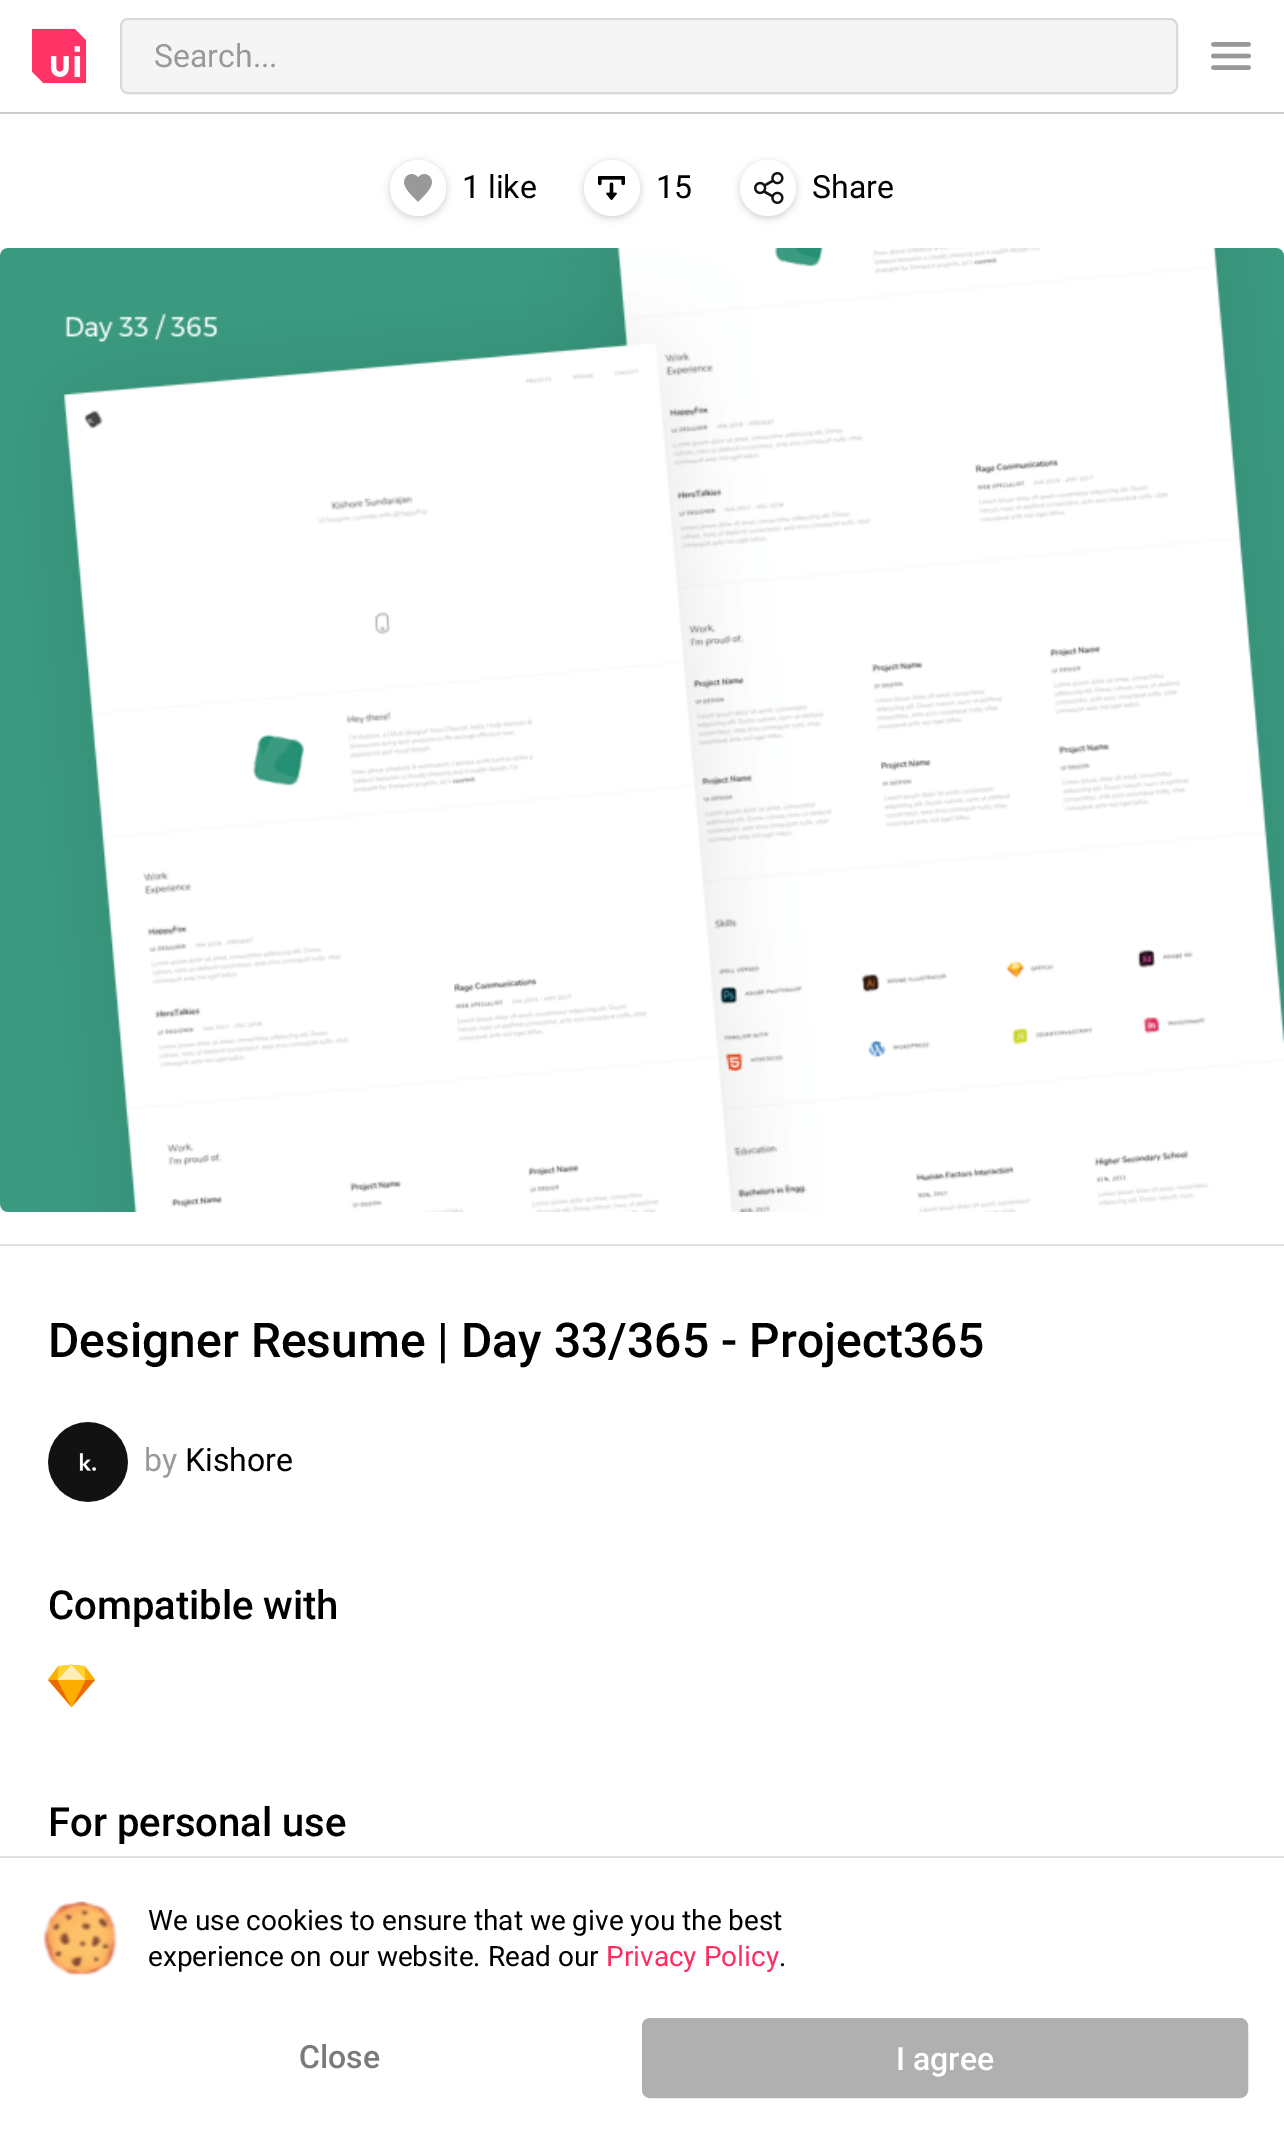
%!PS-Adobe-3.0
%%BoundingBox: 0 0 1284 2133
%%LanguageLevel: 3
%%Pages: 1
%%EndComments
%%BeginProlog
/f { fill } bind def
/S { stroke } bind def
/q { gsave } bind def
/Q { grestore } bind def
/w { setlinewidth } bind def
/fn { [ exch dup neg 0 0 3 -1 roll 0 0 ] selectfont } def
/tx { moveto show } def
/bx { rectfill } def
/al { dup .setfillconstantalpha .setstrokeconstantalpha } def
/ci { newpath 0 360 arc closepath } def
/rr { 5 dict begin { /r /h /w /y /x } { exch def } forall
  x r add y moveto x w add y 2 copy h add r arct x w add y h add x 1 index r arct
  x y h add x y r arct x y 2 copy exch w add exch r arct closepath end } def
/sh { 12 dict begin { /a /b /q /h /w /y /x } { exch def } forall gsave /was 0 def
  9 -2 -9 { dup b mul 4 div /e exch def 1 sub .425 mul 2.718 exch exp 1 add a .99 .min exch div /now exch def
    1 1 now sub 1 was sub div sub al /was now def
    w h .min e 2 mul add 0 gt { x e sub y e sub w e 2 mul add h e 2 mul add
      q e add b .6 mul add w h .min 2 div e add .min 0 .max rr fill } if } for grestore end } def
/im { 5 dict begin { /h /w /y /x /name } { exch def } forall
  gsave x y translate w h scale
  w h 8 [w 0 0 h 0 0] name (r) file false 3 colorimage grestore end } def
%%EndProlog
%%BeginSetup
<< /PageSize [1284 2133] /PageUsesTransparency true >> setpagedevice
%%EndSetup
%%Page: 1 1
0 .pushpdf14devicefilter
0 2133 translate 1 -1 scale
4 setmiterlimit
1 setgray
0 0 1284 2133 bx
0.8 setgray
0 112 1284 2 bx
(image0.raw) 32 28 55 56 im
0.961 setgray
121 19 1056 74 7 rr q f Q
0.851 setgray
2 w
S
/Roboto-Regular 32 fn
0.6 setgray
(Search...) 154 67 tx
(image1.raw) 1211 42 40 28 im
0 setgray
390 162 56 56 28 4 0.18 sh
1 setgray
418 188 28 ci f
(image2.raw) 404 174 28 28 im
0 setgray
(1 like) 462 198 tx
584 162 56 56 28 4 0.18 sh
1 setgray
612 188 28 ci f
(image3.raw) 598 176 27 24 im
0 setgray
(15) 656 198 tx
740 162 56 56 28 4 0.18 sh
1 setgray
768 188 28 ci f
(image4.raw) 754 172 30 32 im
0 setgray
(Share) 812 198 tx
(image5.raw) 0 248 1284 964 im
0.878 setgray
0 1244 1284 2 bx
/Roboto-Medium 48 fn
0 setgray
(Designer Resume | Day 33/365 - Project365) 48 1357 tx
(image6.raw) 48 1422 80 80 im
/Roboto-Regular 32 fn
0.6 setgray
(by) 144 1471 tx
0 setgray
(Kishore) 185 1471 tx
/Roboto-Medium 40 fn
(Compatible with) 48 1619 tx
(image7.raw) 48 1664 47 44 im
(For personal use) 48 1836 tx
0.878 setgray
0 1856 1284 2 bx
(image8.raw) 43 1901 75 75 im
/Roboto-Regular 28 fn
0 setgray
(We use cookies to ensure that we give you the best) 148 1930 tx
(experience on our website. Read our) 148 1966 tx
0.988 0.176 0.376 setrgbcolor
(Privacy Policy) 606 1966 tx
0 setgray
(.) 779 1966 tx
/Roboto-Medium 32 fn
0.478 setgray
(Close) 299 2068 tx
0.69 setgray
643 2019 604 78 7 rr q f Q
S
1 setgray
(I agree) 896 2070 tx
.poppdf14devicefilter showpage
%%EOF
